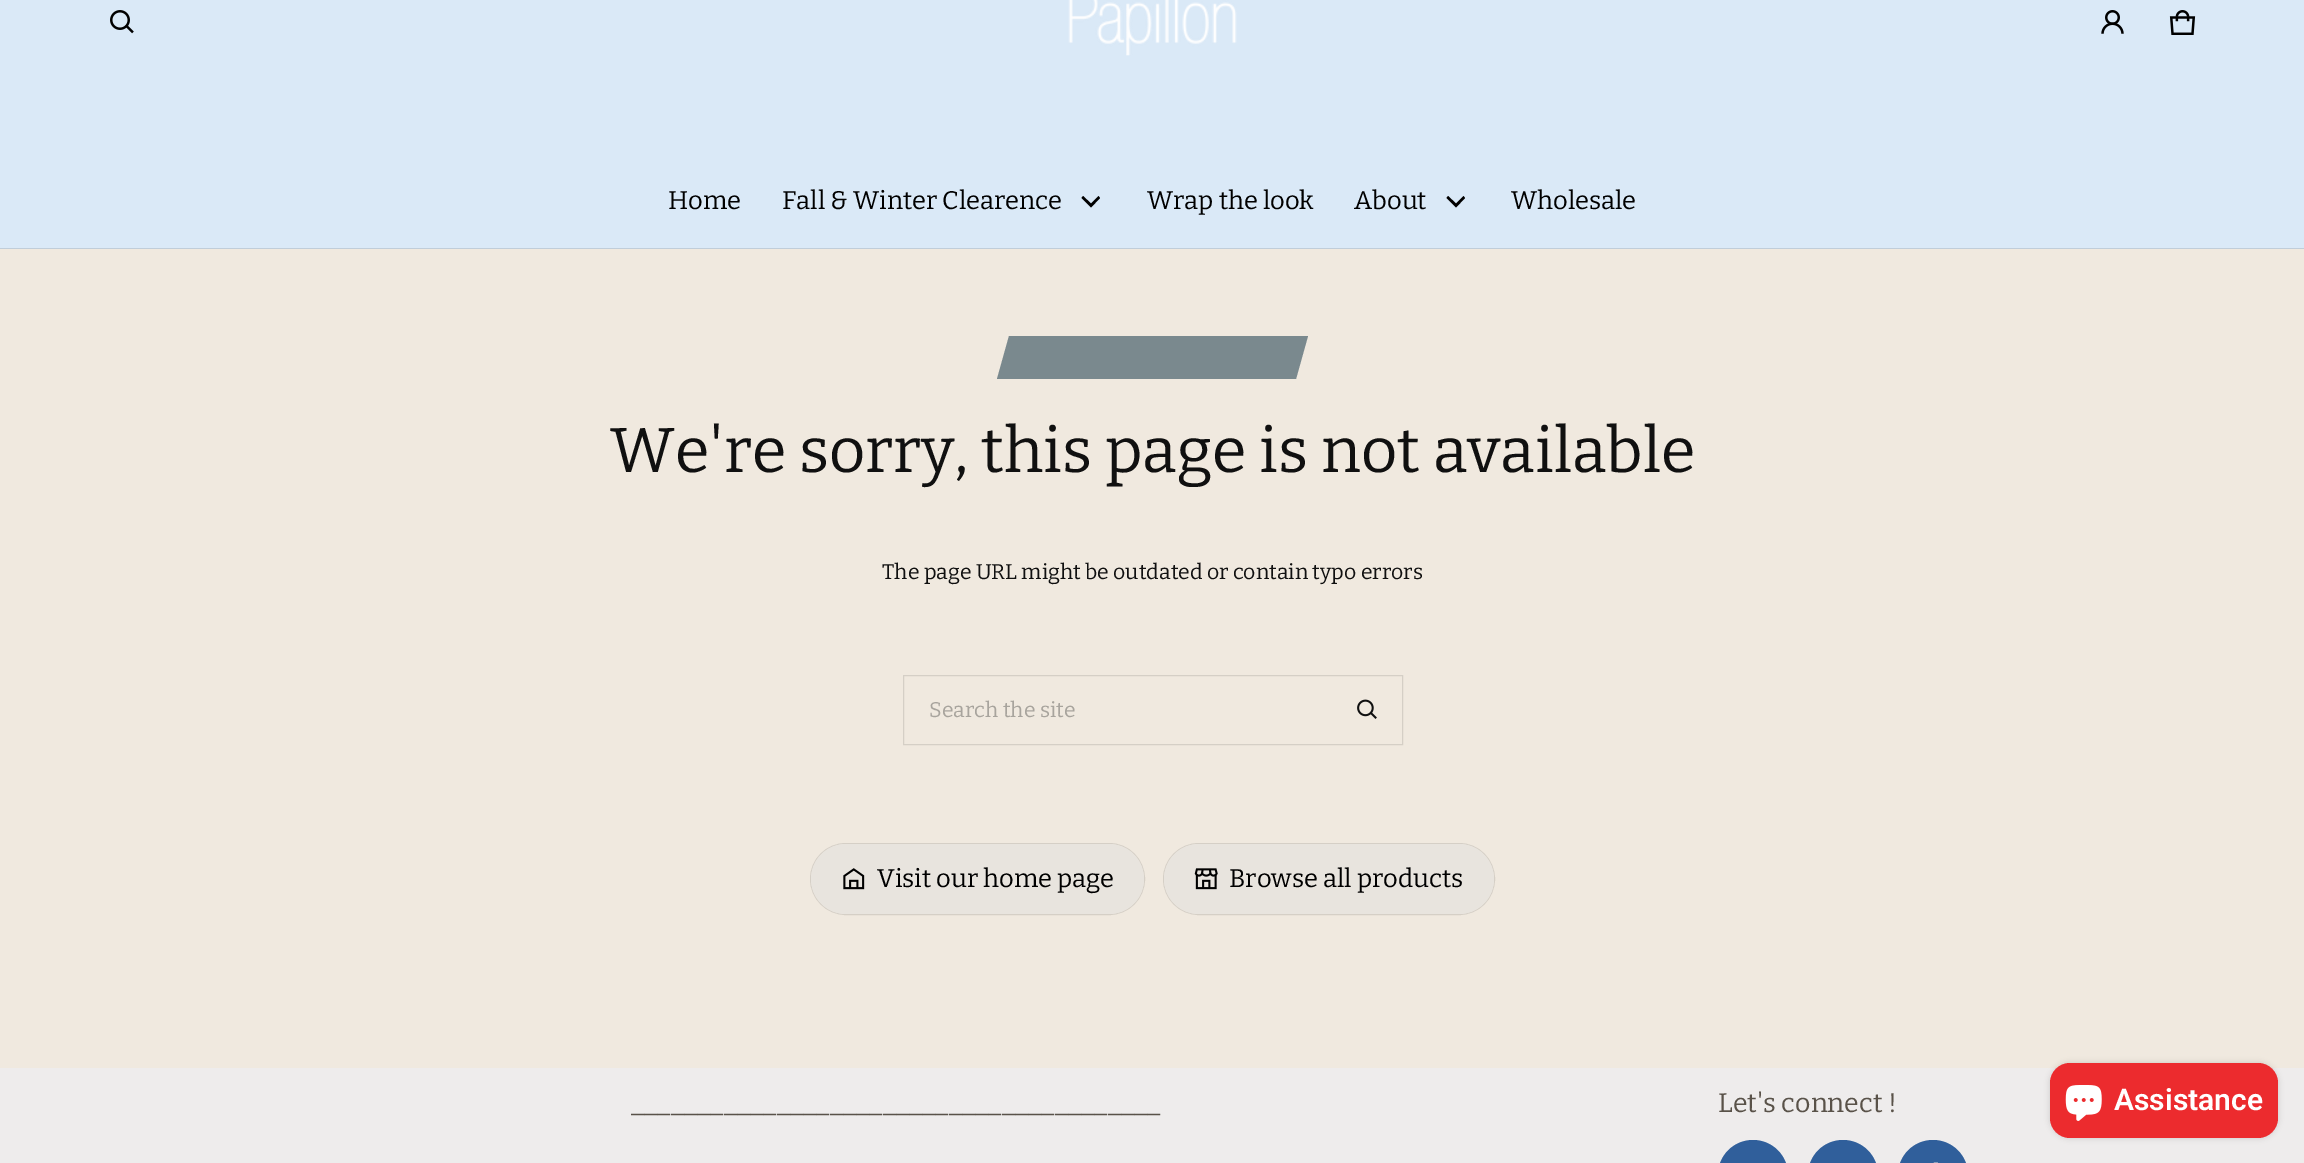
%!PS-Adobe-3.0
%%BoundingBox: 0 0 2304 1163
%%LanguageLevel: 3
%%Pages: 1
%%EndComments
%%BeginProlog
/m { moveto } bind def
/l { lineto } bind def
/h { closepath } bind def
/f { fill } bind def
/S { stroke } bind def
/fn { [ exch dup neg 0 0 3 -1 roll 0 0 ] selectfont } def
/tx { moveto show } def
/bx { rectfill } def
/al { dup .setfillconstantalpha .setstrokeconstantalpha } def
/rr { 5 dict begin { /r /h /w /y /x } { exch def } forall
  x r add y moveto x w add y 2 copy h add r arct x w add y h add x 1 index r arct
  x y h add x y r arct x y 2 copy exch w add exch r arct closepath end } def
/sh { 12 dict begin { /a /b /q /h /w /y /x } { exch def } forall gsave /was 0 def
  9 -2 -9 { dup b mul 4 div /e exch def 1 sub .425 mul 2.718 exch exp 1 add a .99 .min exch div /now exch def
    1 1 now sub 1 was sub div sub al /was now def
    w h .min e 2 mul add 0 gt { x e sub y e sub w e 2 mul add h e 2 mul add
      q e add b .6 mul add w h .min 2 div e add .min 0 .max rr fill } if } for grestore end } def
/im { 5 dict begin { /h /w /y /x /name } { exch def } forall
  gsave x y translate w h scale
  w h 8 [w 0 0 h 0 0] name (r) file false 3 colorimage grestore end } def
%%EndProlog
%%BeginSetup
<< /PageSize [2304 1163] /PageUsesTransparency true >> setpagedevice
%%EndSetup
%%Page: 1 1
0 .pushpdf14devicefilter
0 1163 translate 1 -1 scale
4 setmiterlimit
0.941 0.914 0.875 setrgbcolor
0 0 2304 1163 bx
0.855 0.914 0.969 setrgbcolor
0 0 2304 248 bx
0.753 0.804 0.851 setrgbcolor
0 248 2304 1 bx
(image0.raw) 110 10 24 24 im
(image1.raw) 1068 0 169 56 im
(image2.raw) 2101 10 23 24 im
(image3.raw) 2169 10 27 25 im
/Bitter-Regular 25.5 fn
0 setgray
(Home) 668 209 tx
(Fall & Winter Clearence) 782 209 tx
1091 203.5 m 1098.5 196 l 1100 198 l 1091 207.5 l 1081.5 198 l 1083 196 l h eofill
(Wrap the look) 1147 209 tx
(About) 1354 209 tx
1456 203.5 m 1463.5 196 l 1465 198 l 1456 207.5 l 1446.5 198 l 1448 196 l h eofill
(Wholesale) 1511 209 tx
0.478 0.537 0.557 setrgbcolor
1308 336 m 1296 379 l 997 379 l 1009 336 l h f
/Bitter-Regular 63.1 fn
0.063 setgray
(We're sorry, this page is not available) 610 472 tx
/Bitter-Regular 21.25 fn
(The page URL might be outdated or contain typo errors) 882 579 tx
0.835 0.812 0.776 setrgbcolor
903.5 675.5 499 69 rectstroke
0.659 0.643 0.616 setrgbcolor
(Search the site) 929 717 tx
(image4.raw) 1357 699 20 20 im
0.835 0.812 0.776 setrgbcolor
810.5 843.5 334 71 35.5 rr S
0.91 0.894 0.871 setrgbcolor
811 844 333 70 35 rr f
(image5.raw) 843 868 22 22 im
/Bitter-Regular 25.5 fn
0 setgray
(Visit our home page) 877 887 tx
0.835 0.812 0.776 setrgbcolor
1163.5 843.5 331 71 35.5 rr S
0.91 0.894 0.871 setrgbcolor
1164 844 330 70 35 rr f
(image6.raw) 1194 868 24 22 im
0 setgray
(Browse all products) 1229 887 tx
0.933 0.925 0.925 setrgbcolor
0 1068 2304 95 bx
/Bitter-Regular 26.75 fn
0.349 0.322 0.286 setrgbcolor
(Let's connect !) 1718 1112 tx
0.188 0.373 0.608 setrgbcolor
1718 1140 70 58 35 rr f
1808 1140 70 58 35 rr f
1898 1140 70 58 35 rr f
(image7.raw) 1933 1162 5 1 im
0.349 0.322 0.286 setrgbcolor
(________________________________________) 631 1112 tx
0 setgray
2050 1063 228 75 20 3 0.15 sh
0.925 0.169 0.18 setrgbcolor
2050 1063 228 75 20 rr f
(image8.raw) 2065 1085 37 36 im
/Roboto-SemiBold 30 fn
1 setgray
(Assistance) 2114 1110 tx
.poppdf14devicefilter showpage
%%EOF
